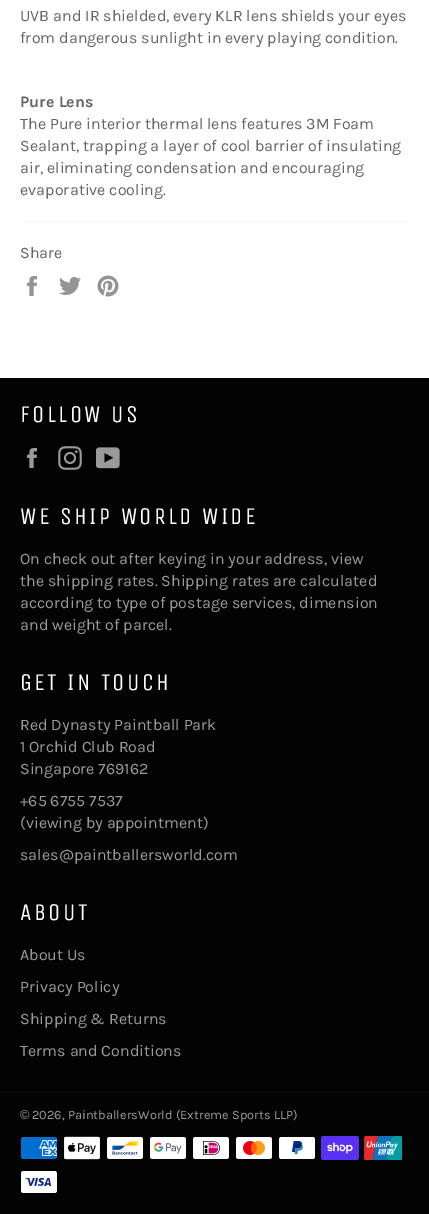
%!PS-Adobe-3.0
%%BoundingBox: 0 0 429 1214
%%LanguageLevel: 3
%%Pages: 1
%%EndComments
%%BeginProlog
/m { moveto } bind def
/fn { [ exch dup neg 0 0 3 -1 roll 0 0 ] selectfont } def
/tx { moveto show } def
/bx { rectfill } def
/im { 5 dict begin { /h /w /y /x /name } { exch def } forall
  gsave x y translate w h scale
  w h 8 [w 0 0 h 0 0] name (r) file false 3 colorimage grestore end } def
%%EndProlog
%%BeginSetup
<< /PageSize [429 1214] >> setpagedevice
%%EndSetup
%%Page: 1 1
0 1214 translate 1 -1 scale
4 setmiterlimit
1 setgray
0 0 429 1214 bx
/Karla-Regular 16 fn
0.4 setgray
(UVB and IR shielded, every KLR lens shields your eyes) 20 21 tx
(from dangerous sunlight in every playing condition.) 20 43 tx
/Karla-Bold 16 fn
(Pure Lens) 20 107 tx
/Karla-Regular 16 fn
(The Pure interior thermal lens features 3M Foam) 20 129 tx
(Sealant, trapping a layer of cool barrier of insulating) 20 151 tx
(air, eliminating condensation and encouraging) 20 173 tx
(evaporative cooling.) 20 195 tx
0.969 setgray
20 221 389 1 bx
0.4 setgray
(Share) 20 258 tx
(image0.raw) 27 276 10 20 im
(image1.raw) 59 277 22 18 im
(image2.raw) 97 275 22 22 im
0.012 setgray
0 378 429 836 bx
/UnicaOne-Regular 24 fn
1 setgray
20 422 m 2.4 0 (FOLLOW US) ashow
(image3.raw) 27 448 10 20 im
(image4.raw) 58 446 24 24 im
(image5.raw) 96 447 24 22 im
20 524 m 2.4 0 (WE SHIP WORLD WIDE) ashow
/Karla-Regular 16 fn
0.604 setgray
(On check out after keying in your address, view) 20 564 tx
(the shipping rates. Shipping rates are calculated) 20 586 tx
(according to type of postage services, dimension) 20 608 tx
(and weight of parcel.) 20 630 tx
/UnicaOne-Regular 24 fn
1 setgray
20 690 m 2.4 0 (GET IN TOUCH) ashow
/Karla-Regular 16 fn
0.604 setgray
(Red Dynasty Paintball Park) 20 730 tx
(1 Orchid Club Road) 20 752 tx
(Singapore 769162) 20 774 tx
(+65 6755 7537) 20 806 tx
(\(viewing by appointment\)) 20 828 tx
(sales@paintballersworld.com) 20 860 tx
/UnicaOne-Regular 24 fn
1 setgray
20 920 m 2.4 0 (ABOUT) ashow
/Karla-Regular 16 fn
0.604 setgray
(About Us) 20 960 tx
(Privacy Policy) 20 992 tx
(Shipping & Returns) 20 1024 tx
(Terms and Conditions) 20 1056 tx
0.063 setgray
0 1092 429 1 bx
/LiberationSans-Regular 12.8 fn
0.604 setgray
(©) 20 1119 tx
/Karla-Regular 12.8 fn
(2026, PaintballersWorld \(Extreme Sports LLP\)) 32 1119 tx
(image6.raw) 21 1137 36 22 im
(image7.raw) 64 1136 36 24 im
(image8.raw) 107 1137 36 22 im
(image9.raw) 150 1137 36 22 im
(image10.raw) 193 1137 36 22 im
(image11.raw) 236 1137 36 22 im
(image12.raw) 279 1137 36 22 im
(image13.raw) 321 1136 38 24 im
(image14.raw) 364 1136 38 24 im
(image15.raw) 21 1171 36 22 im
showpage
%%EOF
